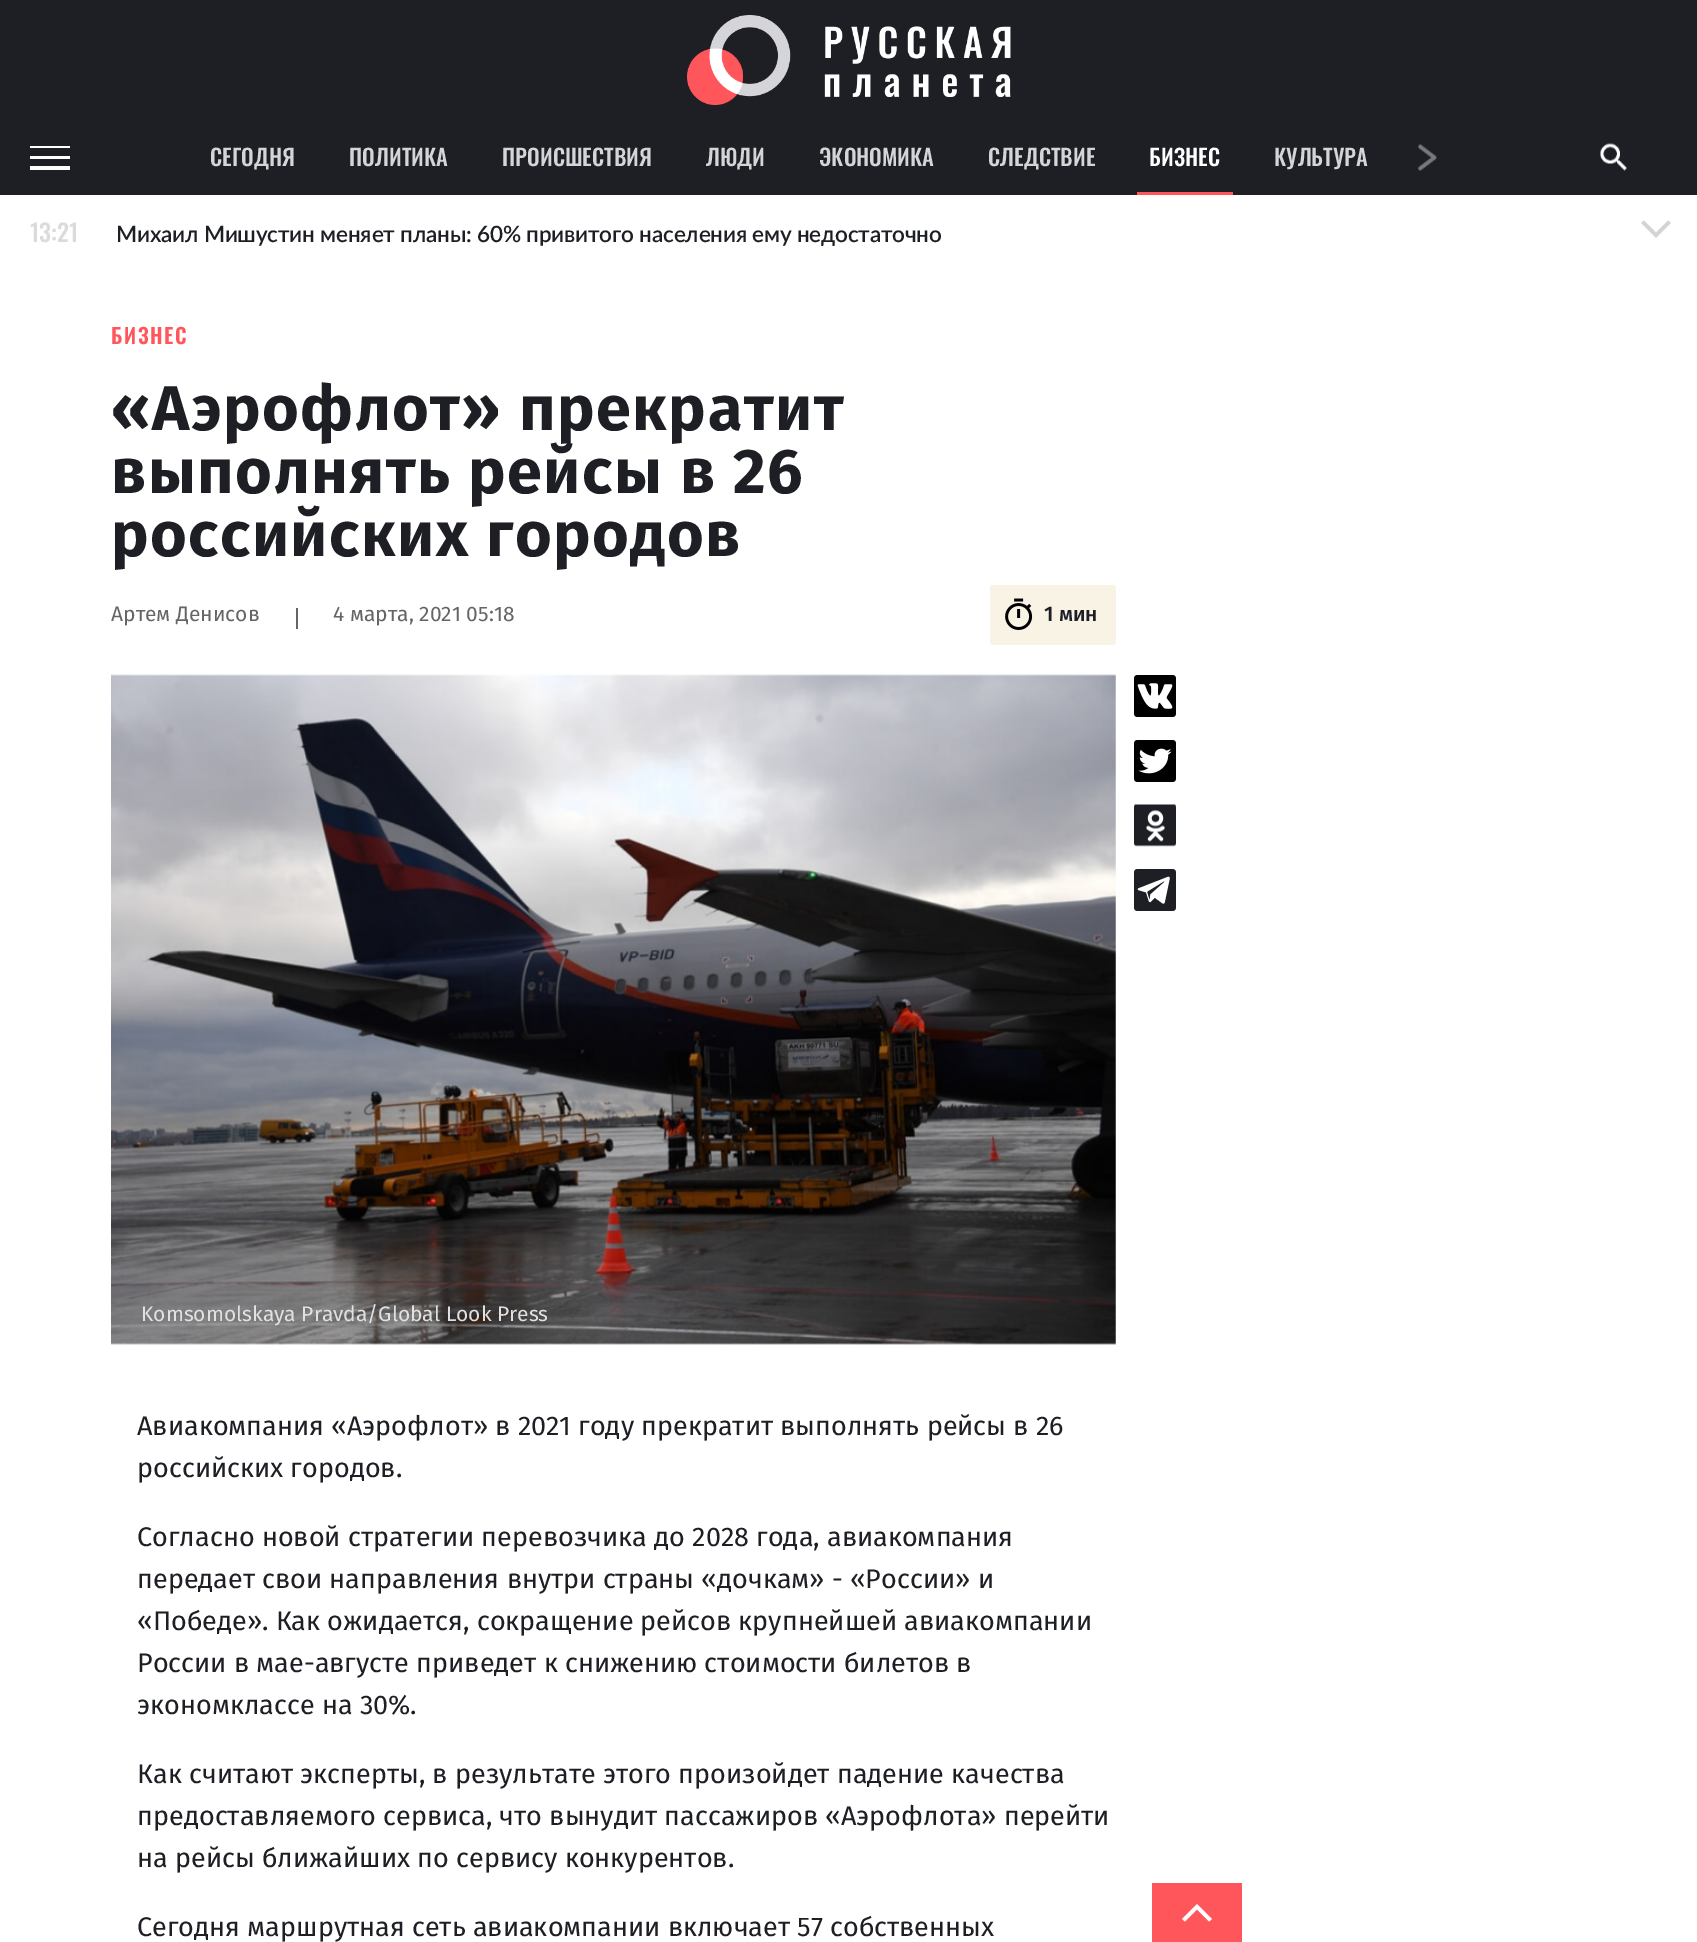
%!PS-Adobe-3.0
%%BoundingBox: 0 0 1697 1942
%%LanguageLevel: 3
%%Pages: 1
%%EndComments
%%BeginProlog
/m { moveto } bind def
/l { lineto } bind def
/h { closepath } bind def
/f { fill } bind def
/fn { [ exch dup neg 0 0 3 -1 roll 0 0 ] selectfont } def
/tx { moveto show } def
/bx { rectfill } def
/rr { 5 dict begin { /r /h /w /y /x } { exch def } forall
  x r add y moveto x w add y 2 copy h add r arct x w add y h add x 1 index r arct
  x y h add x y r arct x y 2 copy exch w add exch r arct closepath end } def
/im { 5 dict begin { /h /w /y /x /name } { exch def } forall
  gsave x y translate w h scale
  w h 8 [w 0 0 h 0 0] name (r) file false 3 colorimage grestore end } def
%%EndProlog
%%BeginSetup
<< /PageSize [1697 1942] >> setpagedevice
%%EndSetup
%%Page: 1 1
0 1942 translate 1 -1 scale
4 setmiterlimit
1 setgray
0 0 1697 1942 bx
0.114 0.122 0.141 setrgbcolor
0 0 1697 195 bx
(image0.raw) 687 15 324 90 im
1 setgray
30 170 m 30 166 l 70 166 l 70 170 l h 30 159 m 30 156 l 70 156 l 70 159 l h 30 148 m 30 146 l 70 146 l 70 148 l h f
/Oswald-Medium 22.5 fn
0.835 0.835 0.847 setrgbcolor
(СЕГОДНЯ) 210 166 tx
(ПОЛИТИКА) 349 166 tx
(ПРОИСШЕСТВИЯ) 502 166 tx
(ЛЮДИ) 706 166 tx
(ЭКОНОМИКА) 819 166 tx
(СЛЕДСТВИЕ) 988 166 tx
1 0.337 0.361 setrgbcolor
1137 192 96 3 bx
1 setgray
(БИЗНЕС) 1149 166 tx
0.835 0.835 0.847 setrgbcolor
(КУЛЬТУРА) 1274 166 tx
(image1.raw) 1418 144 19 27 im
(image2.raw) 1600 143 27 28 im
/Oswald-Medium 24 fn
0.859 0.859 0.863 setrgbcolor
(13:21) 30 242 tx
/Lato-SemiBold 22.5 fn
0.114 0.122 0.141 setrgbcolor
116 242 m -0.17 0 (Михаил Мишустин меняет планы: 60% привитого населения ему недостаточно) ashow
0.835 0.835 0.847 setrgbcolor
1644 220.5 m 1641 223 l 1656 238 l 1671 223 l 1668 220.5 l 1656 232.5 l h f
/Oswald-SemiBold 21 fn
1 0.337 0.361 setrgbcolor
111 344 m 1.5 0 (БИЗНЕС) ashow
/FiraSans-Bold 63 fn
0.114 0.122 0.141 setrgbcolor
111 430 m 1.5 0 («Аэрофлот» прекратит) ashow
111 493 m 1.5 0 (выполнять рейсы в 26) ashow
111 556 m 1.5 0 (российских городов) ashow
/FiraSans-Regular 21 fn
0.396 setgray
(Артем Денисов) 111 621 tx
296 608 2 21 bx
(4 марта, 2021 05:18) 333 621 tx
0.973 0.953 0.898 setrgbcolor
990 585 126 60 3 rr f
(image3.raw) 1005 598 28 32 im
/FiraSans-Medium 21 fn
0.114 0.122 0.141 setrgbcolor
(1 мин) 1044 621 tx
(image4.raw) 1134 675 42 42 im
(image5.raw) 1134 740 42 42 im
(image6.raw) 1134 804 42 43 im
(image7.raw) 1134 869 42 42 im
(image8.raw) 111 674 1005 671 im
/FiraSans-Regular 21 fn
0.882 setgray
(Komsomolskaya Pravda/Global Look Press) 141 1321 tx
/FiraSans-Regular 27 fn
0.114 0.122 0.141 setrgbcolor
(Авиакомпания «Аэрофлот» в 2021 году прекратит выполнять рейсы в 26) 137 1435 tx
(российских городов.) 137 1477 tx
(Согласно новой стратегии перевозчика до 2028 года, авиакомпания) 137 1546 tx
(передает свои направления внутри страны «дочкам» - «России» и) 137 1588 tx
(«Победе». Как ожидается, сокращение рейсов крупнейшей авиакомпании) 137 1630 tx
(России в мае-августе приведет к снижению стоимости билетов в) 137 1672 tx
(экономклассе на 30%.) 137 1714 tx
(Как считают эксперты, в результате этого произойдет падение качества) 137 1783 tx
(предоставляемого сервиса, что вынудит пассажиров «Аэрофлота» перейти) 137 1825 tx
(на рейсы ближайших по сервису конкурентов.) 137 1867 tx
(Сегодня маршрутная сеть авиакомпании включает 57 собственных) 137 1936 tx
1 0.337 0.361 setrgbcolor
1152 1883 90 59 bx
1 setgray
1209 1921.5 m 1212 1919 l 1197 1904 l 1182 1919 l 1185 1921.5 l 1197 1909.5 l h f
showpage
%%EOF
